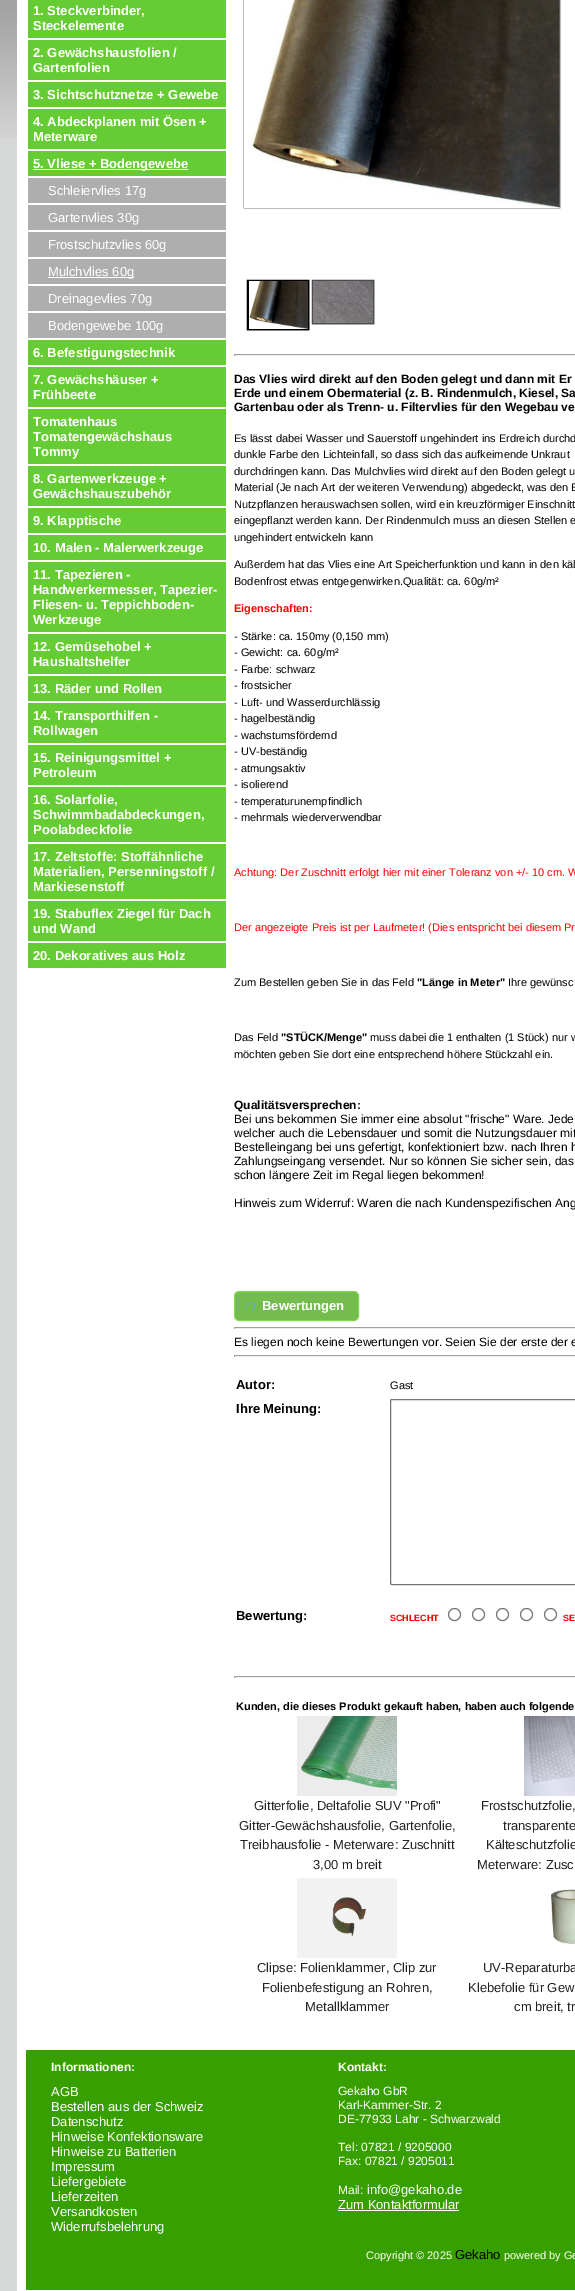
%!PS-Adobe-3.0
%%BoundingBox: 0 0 575 2291
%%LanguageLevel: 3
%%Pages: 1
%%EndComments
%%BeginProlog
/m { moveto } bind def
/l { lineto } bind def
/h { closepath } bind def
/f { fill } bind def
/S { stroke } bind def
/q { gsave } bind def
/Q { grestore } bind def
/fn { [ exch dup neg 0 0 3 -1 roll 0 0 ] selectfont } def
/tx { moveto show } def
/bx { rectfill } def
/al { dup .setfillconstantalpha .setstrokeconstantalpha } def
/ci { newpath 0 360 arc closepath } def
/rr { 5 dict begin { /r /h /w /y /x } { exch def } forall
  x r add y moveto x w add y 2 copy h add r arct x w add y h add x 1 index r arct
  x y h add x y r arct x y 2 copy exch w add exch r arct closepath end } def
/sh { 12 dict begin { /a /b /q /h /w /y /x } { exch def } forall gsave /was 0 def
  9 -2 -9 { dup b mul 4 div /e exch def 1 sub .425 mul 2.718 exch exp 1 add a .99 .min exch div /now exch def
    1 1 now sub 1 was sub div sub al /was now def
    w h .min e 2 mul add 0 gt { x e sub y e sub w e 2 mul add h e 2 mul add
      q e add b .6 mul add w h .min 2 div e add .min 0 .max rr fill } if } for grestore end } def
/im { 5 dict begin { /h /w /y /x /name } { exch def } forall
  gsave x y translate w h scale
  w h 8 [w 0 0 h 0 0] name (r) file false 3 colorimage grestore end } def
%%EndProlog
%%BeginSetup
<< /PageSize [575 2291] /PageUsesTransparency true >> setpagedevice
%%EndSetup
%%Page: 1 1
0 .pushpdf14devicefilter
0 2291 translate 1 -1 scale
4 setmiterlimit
0.839 0.843 0.843 setrgbcolor
0 0 575 2291 bx
(image0.raw) 0 0 17 137 im
1 setgray
17 0 558 2291 bx
0.4 0.8 0.2 setrgbcolor
28 0 198 38 bx
/LiberationSans-Bold 13 fn
1 setgray
(1. Steckverbinder,) 33 15 tx
(Steckelemente) 33 30 tx
0.4 0.8 0.2 setrgbcolor
28 40 198 40 bx
1 setgray
(2. Gewächshausfolien /) 33 57 tx
(Gartenfolien) 33 72 tx
0.4 0.8 0.2 setrgbcolor
28 82 198 25 bx
1 setgray
(3. Sichtschutznetze + Gewebe) 33 99 tx
0.4 0.8 0.2 setrgbcolor
28 109 198 40 bx
1 setgray
(4. Abdeckplanen mit Ösen +) 33 126 tx
(Meterware) 33 141 tx
0.4 0.8 0.2 setrgbcolor
28 151 198 25 bx
1 setgray
33 169 155 1 bx
(5. Vliese + Bodengewebe) 33 168 tx
0.682 setgray
28 178 198 25 bx
/LiberationSans-Regular 13 fn
1 setgray
(Schleiervlies 17g) 48 195 tx
0.682 setgray
28 205 198 25 bx
1 setgray
(Gartenvlies 30g) 48 222 tx
0.682 setgray
28 232 198 25 bx
1 setgray
(Frostschutzvlies 60g) 48 249 tx
0.682 setgray
28 259 198 25 bx
1 setgray
48 277 86 1 bx
(Mulchvlies 60g) 48 276 tx
0.682 setgray
28 286 198 25 bx
1 setgray
(Dreinagevlies 70g) 48 303 tx
0.682 setgray
28 313 198 25 bx
1 setgray
(Bodengewebe 100g) 48 330 tx
0.4 0.8 0.2 setrgbcolor
28 340 198 25 bx
/LiberationSans-Bold 13 fn
1 setgray
(6. Befestigungstechnik) 33 357 tx
0.4 0.8 0.2 setrgbcolor
28 367 198 40 bx
1 setgray
(7. Gewächshäuser +) 33 384 tx
(Frühbeete) 33 399 tx
0.4 0.8 0.2 setrgbcolor
28 409 198 55 bx
1 setgray
(Tomatenhaus) 33 426 tx
(Tomatengewächshaus) 33 441 tx
(Tommy) 33 456 tx
0.4 0.8 0.2 setrgbcolor
28 466 198 40 bx
1 setgray
(8. Gartenwerkzeuge +) 33 483 tx
(Gewächshauszubehör) 33 498 tx
0.4 0.8 0.2 setrgbcolor
28 508 198 25 bx
1 setgray
(9. Klapptische) 33 525 tx
0.4 0.8 0.2 setrgbcolor
28 535 198 25 bx
1 setgray
(10. Malen - Malerwerkzeuge) 33 552 tx
0.4 0.8 0.2 setrgbcolor
28 562 198 70 bx
1 setgray
(11. Tapezieren -) 33 579 tx
(Handwerkermesser, Tapezier-) 33 594 tx
(Fliesen- u. Teppichboden-) 33 609 tx
(Werkzeuge) 33 624 tx
0.4 0.8 0.2 setrgbcolor
28 634 198 40 bx
1 setgray
(12. Gemüsehobel +) 33 651 tx
(Haushaltshelfer) 33 666 tx
0.4 0.8 0.2 setrgbcolor
28 676 198 25 bx
1 setgray
(13. Räder und Rollen) 33 693 tx
0.4 0.8 0.2 setrgbcolor
28 703 198 40 bx
1 setgray
(14. Transporthilfen -) 33 720 tx
(Rollwagen) 33 735 tx
0.4 0.8 0.2 setrgbcolor
28 745 198 40 bx
1 setgray
(15. Reinigungsmittel +) 33 762 tx
(Petroleum) 33 777 tx
0.4 0.8 0.2 setrgbcolor
28 787 198 55 bx
1 setgray
(16. Solarfolie,) 33 804 tx
(Schwimmbadabdeckungen,) 33 819 tx
(Poolabdeckfolie) 33 834 tx
0.4 0.8 0.2 setrgbcolor
28 844 198 55 bx
1 setgray
(17. Zeltstoffe: Stoffähnliche) 33 861 tx
(Materialien, Persenningstoff /) 33 876 tx
(Markiesenstoff) 33 891 tx
0.4 0.8 0.2 setrgbcolor
28 901 198 40 bx
1 setgray
(19. Stabuflex Ziegel für Dach) 33 918 tx
(und Wand) 33 933 tx
0.4 0.8 0.2 setrgbcolor
28 943 198 25 bx
1 setgray
(20. Dekoratives aus Holz) 33 960 tx
q
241 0 m 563 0 l 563 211 l 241 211 l h 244 -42 m 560 -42 l 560 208 l 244 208 l h eoclip newpath
0 setgray
244 -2 316 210 0 0.5 1 sh
Q
(image1.raw) 248 0 312 208 im
0 setgray
247 280 62 50 0 0.5 1 sh
247.5 280.5 61 49 rectstroke
(image2.raw) 249 281 59 48 im
q
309 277 m 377 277 l 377 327 l 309 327 l h 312 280 m 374 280 l 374 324 l 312 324 l h eoclip newpath
0.302 setgray
312 280 62 44 0 0.5 1 sh
Q
0.302 setgray
312.5 280.5 61 43 rectstroke
(image3.raw) 313 281 60 42 im
0.624 setgray
234 354 341 1 bx
0.933 setgray
234 355 341 1 bx
0.624 setgray
234 354 1 2 bx
/LiberationSans-Bold 12 fn
0 setgray
(Das Vlies wird direkt auf den Boden gelegt und dann mit Er) 234 383 tx
(Erde und einem Obermaterial \(z. B. Rindenmulch, Kiesel, Sa) 234 397 tx
(Gartenbau oder als Trenn- u. Filtervlies für den Wegebau ve) 234 411 tx
/LiberationSans-Regular 11 fn
(Es lässt dabei Wasser und Sauerstoff ungehindert ins Erdreich durchd) 234 442 tx
(dunkle Farbe den Lichteinfall, so dass sich das aufkeimende Unkraut) 234 458 tx
(durchdringen kann. Das Mulchvlies wird direkt auf den Boden gelegt u) 234 475 tx
(Material \(Je nach Art der weiteren Verwendung\) abgedeckt, was den E) 234 491 tx
(Nutzpflanzen herauswachsen sollen, wird ein kreuzförmiger Einschnitt) 234 508 tx
(eingepflanzt werden kann. Der Rindenmulch muss an diesen Stellen e) 234 524 tx
(ungehindert entwickeln kann) 234 541 tx
(Außerdem hat das Vlies eine Art Speicherfunktion und kann in den käl) 234 568 tx
(Bodenfrost etwas entgegenwirken.Qualität: ca. 60g/m²) 234 585 tx
/LiberationSans-Bold 11 fn
1 0 0 setrgbcolor
(Eigenschaften:) 234 612 tx
/LiberationSans-Regular 11 fn
0 setgray
(- Stärke: ca. 150my \(0,150 mm\)) 234 640 tx
(- Gewicht: ca. 60g/m²) 234 656 tx
(- Farbe: schwarz) 234 673 tx
(- frostsicher) 234 689 tx
(- Luft- und Wasserdurchlässig) 234 706 tx
(- hagelbeständig) 234 722 tx
(- wachstumsfördernd) 234 739 tx
(- UV-beständig) 234 755 tx
(- atmungsaktiv) 234 772 tx
(- isolierend) 234 788 tx
(- temperaturunempfindlich) 234 805 tx
(- mehrmals wiederverwendbar) 234 821 tx
1 0 0 setrgbcolor
(Achtung: Der Zuschnitt erfolgt hier mit einer Toleranz von +/- 10 cm. W) 234 876 tx
(Der angezeigte Preis ist per Laufmeter! \(Dies entspricht bei diesem Pr) 234 931 tx
0 setgray
(Zum Bestellen geben Sie in das Feld) 234 986 tx
/LiberationSans-Bold 11 fn
("Länge in Meter") 417 986 tx
/LiberationSans-Regular 11 fn
(Ihre gewünsc) 508 986 tx
(Das Feld) 234 1041 tx
/LiberationSans-Bold 11 fn
("STÜCK/Menge") 281 1041 tx
/LiberationSans-Regular 11 fn
(muss dabei die 1 enthalten \(1 Stück\) nur w) 370 1041 tx
(möchten geben Sie dort eine entsprechend höhere Stückzahl ein.) 234 1058 tx
/LiberationSans-Bold 12 fn
(Qualitätsversprechen:) 234 1109 tx
/LiberationSans-Regular 12 fn
(Bei uns bekommen Sie immer eine absolut "frische" Ware. Jede) 234 1123 tx
(welcher auch die Lebensdauer und somit die Nutzungsdauer mit) 234 1137 tx
(Bestelleingang bei uns gefertigt, konfektioniert bzw. nach Ihren h) 234 1151 tx
(Zahlungseingang versendet. Nur so können Sie sicher sein, das) 234 1165 tx
(schon längere Zeit im Regal liegen bekommen!) 234 1179 tx
(Hinweis zum Widerruf: Waren die nach Kundenspezifischen Ang) 234 1207 tx
0.451 0.737 0.302 setrgbcolor
234.5 1291.5 124 29 4.5 rr q f Q
0.506 0.851 0.302 setrgbcolor
S
(image4.raw) 246 1303 9 9 im
/LiberationSans-Bold 13 fn
1 setgray
(Bewertungen) 262 1310 tx
0.624 setgray
234 1327 341 1 bx
0.933 setgray
234 1328 341 1 bx
0.624 setgray
234 1327 1 2 bx
/LiberationSans-Regular 12 fn
0 setgray
(Es liegen noch keine Bewertungen vor. Seien Sie der erste der e) 234 1346 tx
0.624 setgray
234 1355 341 1 bx
0.933 setgray
234 1356 341 1 bx
0.624 setgray
234 1355 1 2 bx
/LiberationSans-Bold 13 fn
0 setgray
(Autor:) 236 1389 tx
/LiberationSans-Regular 11 fn
(Gast) 390 1389 tx
/LiberationSans-Bold 13 fn
(Ihre Meinung:) 236 1413 tx
0.463 setgray
390.5 1399.5 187 185 1.5 rr S
0 setgray
(Bewertung:) 236 1620 tx
/LiberationSans-Bold 9 fn
1 0 0 setrgbcolor
(SCHLECHT) 390 1621 tx
0.463 setgray
454.5 1614.5 6 ci S
478.5 1614.5 6 ci S
502.5 1614.5 6 ci S
526.5 1614.5 6 ci S
550.5 1614.5 6 ci S
1 0 0 setrgbcolor
(SE) 563 1621 tx
0.624 setgray
234 1676 341 1 bx
0.933 setgray
234 1677 341 1 bx
0.624 setgray
234 1676 1 2 bx
/LiberationSans-Bold 11 fn
0 setgray
(Kunden, die dieses Produkt gekauft haben, haben auch folgende) 236 1710 tx
(image5.raw) 297 1716 100 80 im
/LiberationSans-Regular 13 fn
0.133 setgray
(Gitterfolie, Deltafolie SUV "Profi") 254 1810 tx
(Gitter-Gewächshausfolie, Gartenfolie,) 239 1830 tx
(Treibhausfolie - Meterware: Zuschnitt) 240 1849 tx
(3,00 m breit) 313 1869 tx
(image6.raw) 524 1716 51 80 im
(Frostschutzfolie,) 481 1810 tx
(transparente) 503 1830 tx
(Kälteschutzfolie) 486 1849 tx
(Meterware: Zusc) 477 1869 tx
(image7.raw) 297 1878 100 80 im
(Clipse: Folienklammer, Clip zur) 257 1972 tx
(Folienbefestigung an Rohren,) 262 1992 tx
(Metallklammer) 305 2011 tx
(image8.raw) 551 1889 24 55 im
(UV-Reparaturba) 483 1972 tx
(Klebefolie für Gew) 468 1992 tx
(cm breit, tr) 514 2011 tx
0.216 0.624 0 setrgbcolor
26 2050 549 240 bx
/LiberationSans-Bold 12 fn
1 setgray
(Informationen:) 51 2071 tx
/LiberationSans-Regular 13 fn
(AGB) 51 2096 tx
(Bestellen aus der Schweiz) 51 2111 tx
(Datenschutz) 51 2126 tx
(Hinweise Konfektionsware) 51 2141 tx
(Hinweise zu Batterien) 51 2156 tx
(Impressum) 51 2171 tx
(Liefergebiete) 51 2186 tx
(Lieferzeiten) 51 2201 tx
(Versandkosten) 51 2216 tx
(Widerrufsbelehrung) 51 2231 tx
/LiberationSans-Bold 12 fn
(Kontakt:) 338 2071 tx
/LiberationSans-Regular 12 fn
(Gekaho GbR) 338 2095 tx
(Karl-Kammer-Str. 2) 338 2109 tx
(DE-77933 Lahr - Schwarzwald) 338 2123 tx
(Tel: 07821 / 9205000) 338 2151 tx
(Fax: 07821 / 9205011) 338 2165 tx
(Mail:) 338 2194 tx
/LiberationSans-Regular 13 fn
(info@gekaho.de) 367 2194 tx
(Zum Kontaktformular) 338 2209 tx
338 2210 121 1 bx
/LiberationSans-Regular 11 fn
(Copyright © 2025) 366 2259 tx
/LiberationSans-Regular 13 fn
0 setgray
(Gekaho) 455 2259 tx
/LiberationSans-Regular 11 fn
1 setgray
(powered by Ge) 504 2259 tx
.poppdf14devicefilter showpage
%%EOF
